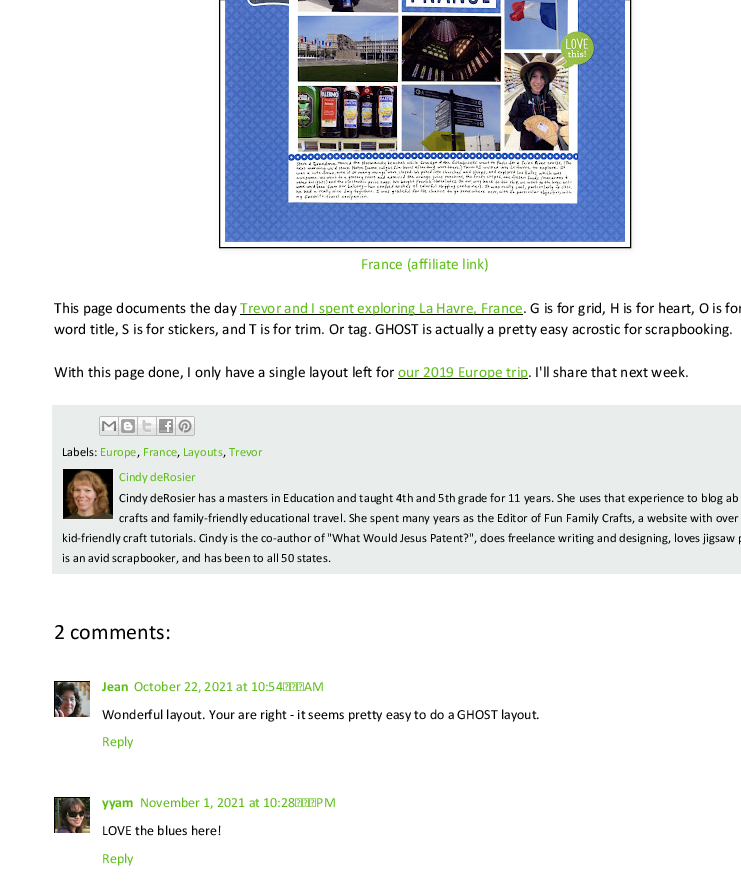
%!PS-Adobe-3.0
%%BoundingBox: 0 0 741 889
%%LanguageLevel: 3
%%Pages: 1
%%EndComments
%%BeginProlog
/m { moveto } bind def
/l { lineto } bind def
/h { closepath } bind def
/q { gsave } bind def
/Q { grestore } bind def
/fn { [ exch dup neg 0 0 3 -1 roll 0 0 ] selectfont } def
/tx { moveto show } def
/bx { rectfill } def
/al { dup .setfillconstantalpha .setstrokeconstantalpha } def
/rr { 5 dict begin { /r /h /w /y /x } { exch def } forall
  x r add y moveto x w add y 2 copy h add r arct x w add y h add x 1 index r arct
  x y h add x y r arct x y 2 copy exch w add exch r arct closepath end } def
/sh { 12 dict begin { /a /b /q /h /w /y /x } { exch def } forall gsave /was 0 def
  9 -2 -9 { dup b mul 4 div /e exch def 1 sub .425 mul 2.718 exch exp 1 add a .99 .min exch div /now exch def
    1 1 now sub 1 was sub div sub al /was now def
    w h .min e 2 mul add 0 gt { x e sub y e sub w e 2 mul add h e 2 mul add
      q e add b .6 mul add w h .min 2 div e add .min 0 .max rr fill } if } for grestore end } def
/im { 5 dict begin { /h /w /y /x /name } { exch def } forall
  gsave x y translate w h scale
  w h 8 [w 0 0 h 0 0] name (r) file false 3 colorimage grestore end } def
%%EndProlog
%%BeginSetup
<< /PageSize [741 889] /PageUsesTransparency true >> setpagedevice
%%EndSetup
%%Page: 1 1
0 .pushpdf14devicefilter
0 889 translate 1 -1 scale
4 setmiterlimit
1 setgray
0 0 741 889 bx
q
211 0 m 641 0 l 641 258 l 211 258 l h 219 -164 m 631 -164 l 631 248 l 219 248 l h eoclip newpath
0 setgray
220 -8 412 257 0 2.5 0.1 sh
Q
0 setgray
219.5 -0.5 411 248 rectstroke
(image0.raw) 225 0 400 242 im
/Calibri-Regular 15.4 fn
0.369 0.741 0.098 setrgbcolor
(France \(affiliate link\)) 361 269 tx
0 setgray
(This page documents the day) 54 313 tx
240 314 283 1 bx
0.369 0.741 0.098 setrgbcolor
(Trevor and I spent exploring La Havre, France) 240 313 tx
0 setgray
(. G is for grid, H is for heart, O is for) 523 313 tx
(word title, S is for stickers, and T is for trim. Or tag. GHOST is actually a pretty easy acrostic for scrapbooking.) 54 334 tx
(With this page done, I only have a single layout left for) 54 377 tx
398 378 130 1 bx
0.369 0.741 0.098 setrgbcolor
(our 2019 Europe trip) 398 377 tx
0 setgray
(. I'll share that next week.) 528 377 tx
0.914 0.929 0.922 setrgbcolor
52 405 689 169 bx
(image1.raw) 99 416 20 20 im
(image2.raw) 119 416 19 20 im
(image3.raw) 138 416 19 20 im
(image4.raw) 157 416 19 20 im
(image5.raw) 176 416 19 20 im
/Calibri-Regular 12.6 fn
0 setgray
(Labels:) 62 456 tx
0.369 0.741 0.098 setrgbcolor
(Europe) 100 456 tx
0 setgray
(,) 137 456 tx
0.369 0.741 0.098 setrgbcolor
(France) 143 456 tx
0 setgray
(,) 177 456 tx
0.369 0.741 0.098 setrgbcolor
(Layouts) 183 456 tx
0 setgray
(,) 223 456 tx
0.369 0.741 0.098 setrgbcolor
(Trevor) 229 456 tx
0.937 setgray
62.5 468.5 51 51 rectstroke
(image6.raw) 63 469 50 50 im
0.369 0.741 0.098 setrgbcolor
(Cindy deRosier) 119 481 tx
0 setgray
(Cindy deRosier has a masters in Education and taught 4th and 5th grade for 11 years. She uses that experience to blog ab) 119 502 tx
(crafts and family-friendly educational travel. She spent many years as the Editor of Fun Family Crafts, a website with over) 119 522 tx
(kid-friendly craft tutorials. Cindy is the co-author of "What Would Jesus Patent?", does freelance writing and designing, loves jigsaw p) 62 542 tx
(is an avid scrapbooker, and has been to all 50 states.) 62 562 tx
/Calibri-Regular 22 fn
(2 comments:) 54 639 tx
q
54 681 36 36 rectclip
54.5 681.5 37 37 rectstroke
Q
(image7.raw) 55 682 35 35 im
/Calibri-Bold 14 fn
0.369 0.741 0.098 setrgbcolor
(Jean) 102 691 tx
/Calibri-Regular 14 fn
(October 22, 2021 at 10:54 AM) 134 691 tx
0 setgray
(Wonderful layout. Your are right - it seems pretty easy to do a GHOST layout.) 102 719 tx
0.369 0.741 0.098 setrgbcolor
(Reply) 102 746 tx
q
54 797 36 36 rectclip
0 setgray
54.5 797.5 37 37 rectstroke
Q
(image8.raw) 55 798 35 35 im
/Calibri-Bold 14 fn
(yyam) 102 807 tx
/Calibri-Regular 14 fn
(November 1, 2021 at 10:28 PM) 140 807 tx
0 setgray
(LOVE the blues here!) 102 835 tx
0.369 0.741 0.098 setrgbcolor
(Reply) 102 863 tx
.poppdf14devicefilter showpage
%%EOF
